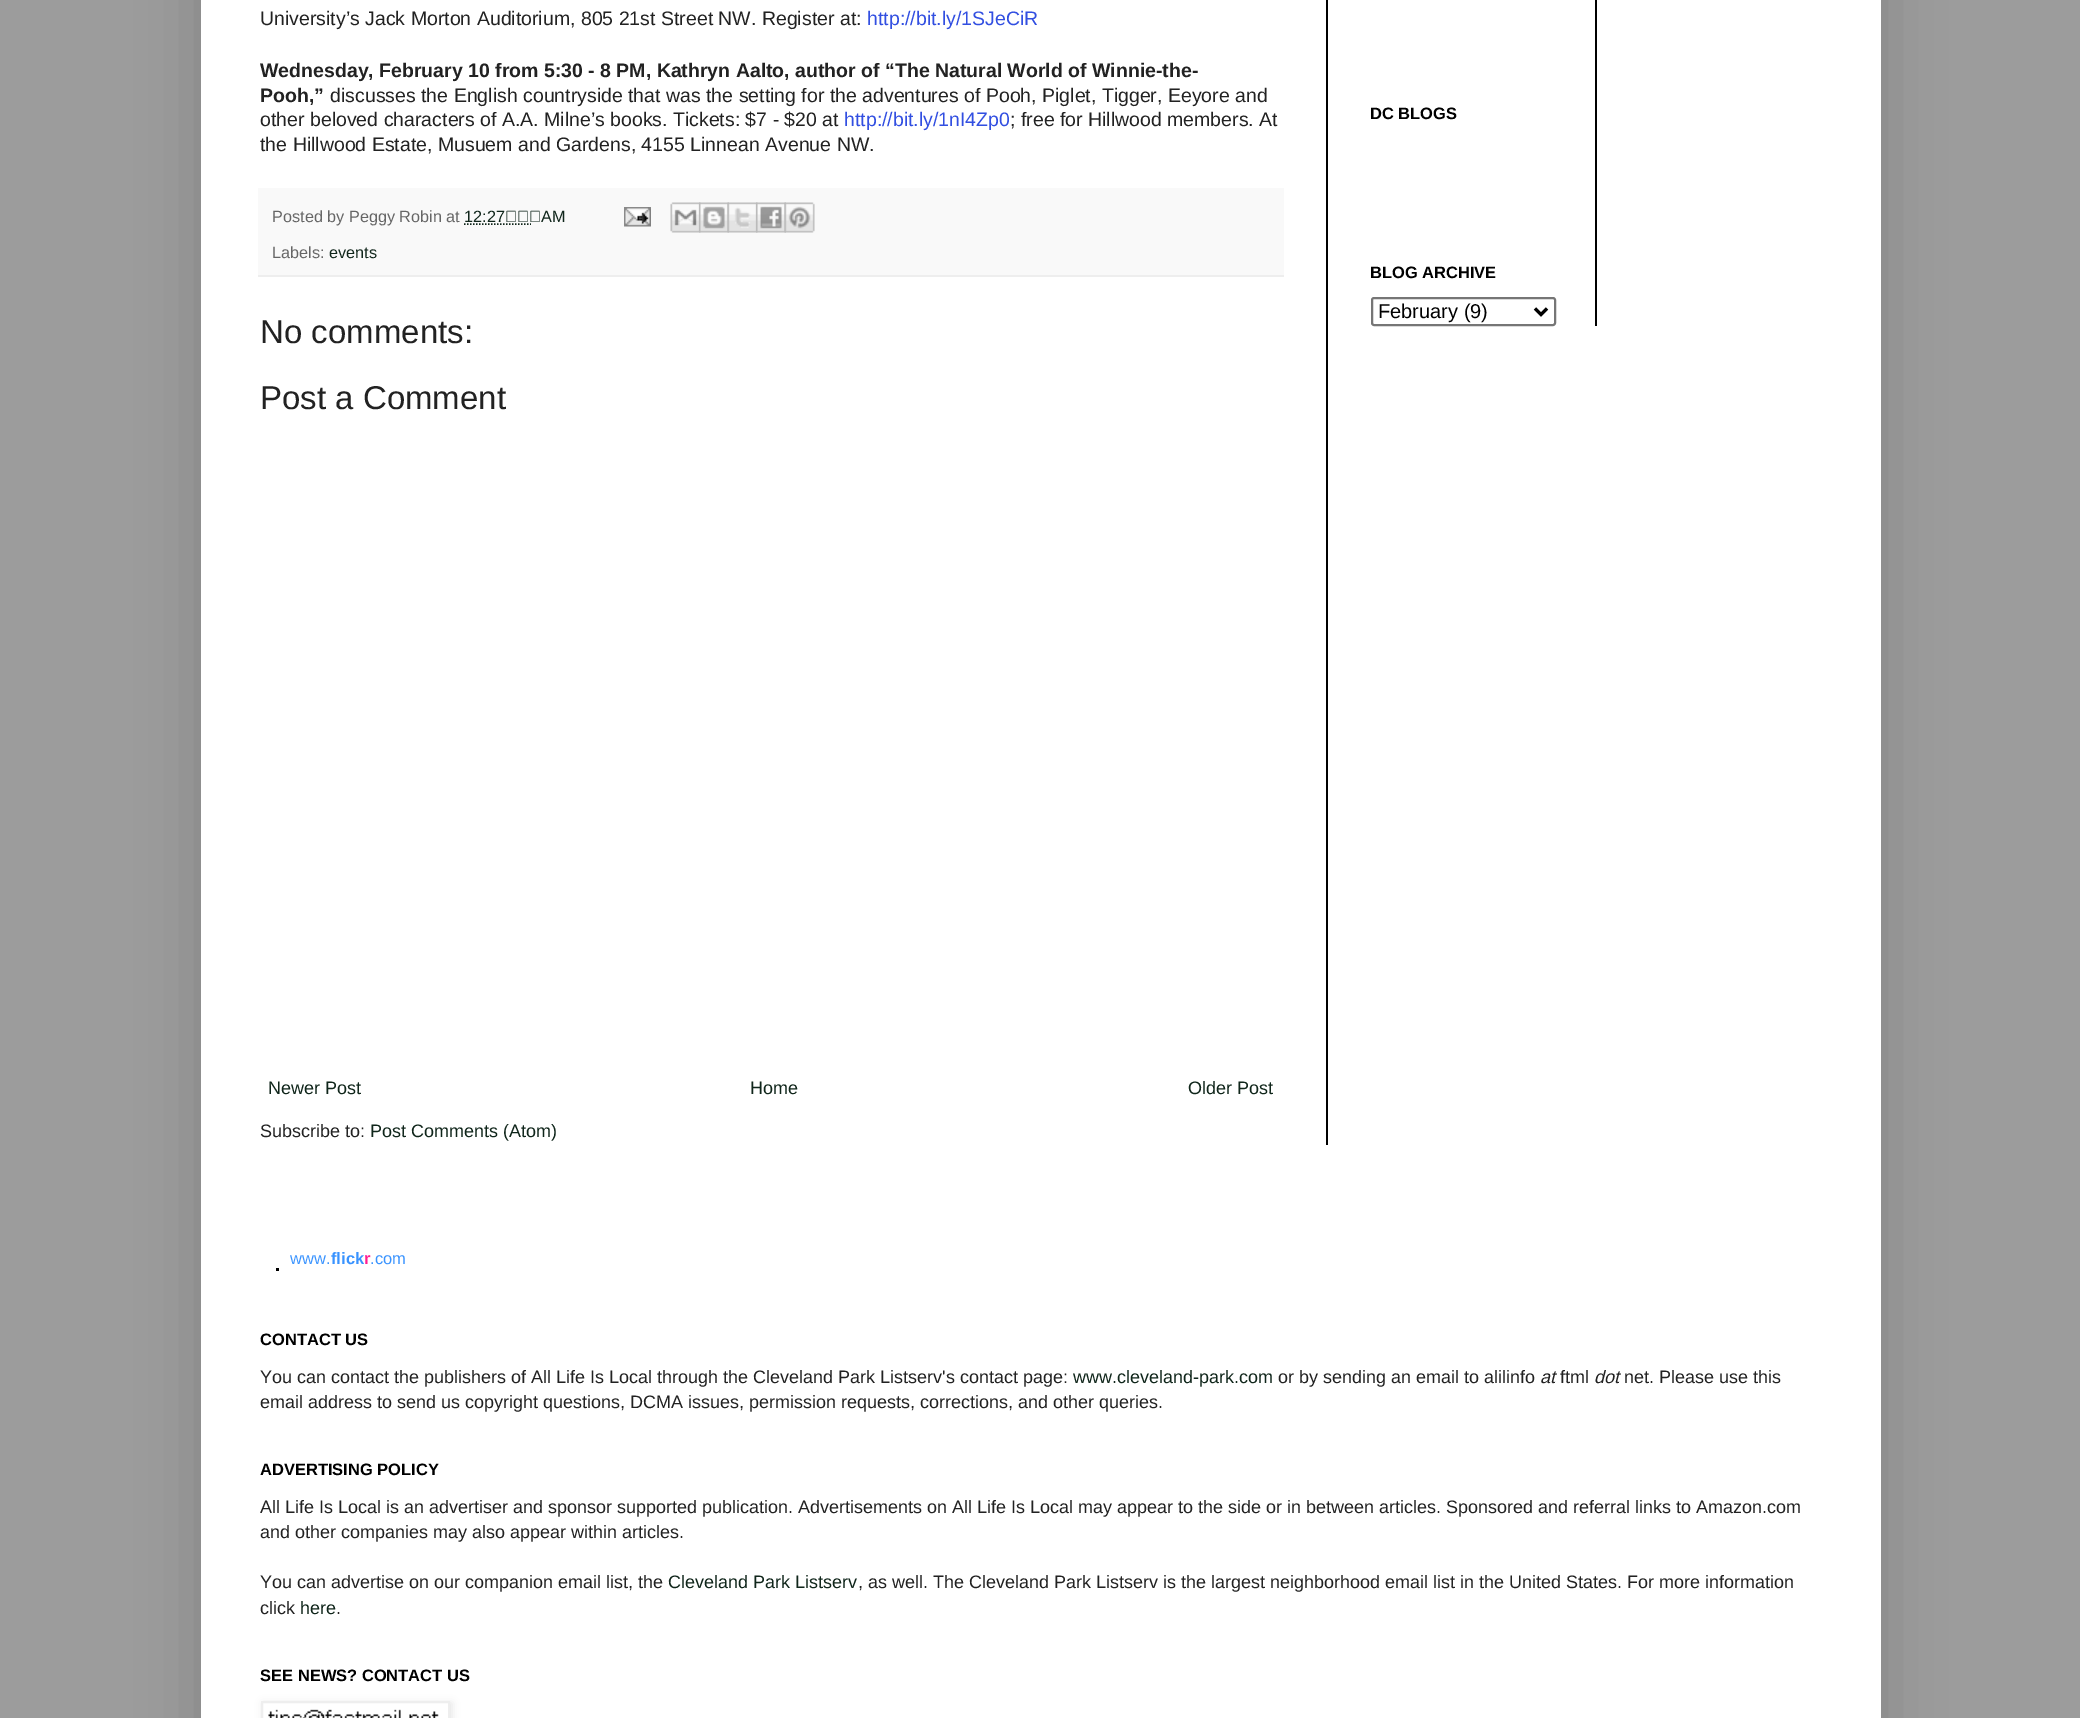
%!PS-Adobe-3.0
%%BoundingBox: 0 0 2080 1718
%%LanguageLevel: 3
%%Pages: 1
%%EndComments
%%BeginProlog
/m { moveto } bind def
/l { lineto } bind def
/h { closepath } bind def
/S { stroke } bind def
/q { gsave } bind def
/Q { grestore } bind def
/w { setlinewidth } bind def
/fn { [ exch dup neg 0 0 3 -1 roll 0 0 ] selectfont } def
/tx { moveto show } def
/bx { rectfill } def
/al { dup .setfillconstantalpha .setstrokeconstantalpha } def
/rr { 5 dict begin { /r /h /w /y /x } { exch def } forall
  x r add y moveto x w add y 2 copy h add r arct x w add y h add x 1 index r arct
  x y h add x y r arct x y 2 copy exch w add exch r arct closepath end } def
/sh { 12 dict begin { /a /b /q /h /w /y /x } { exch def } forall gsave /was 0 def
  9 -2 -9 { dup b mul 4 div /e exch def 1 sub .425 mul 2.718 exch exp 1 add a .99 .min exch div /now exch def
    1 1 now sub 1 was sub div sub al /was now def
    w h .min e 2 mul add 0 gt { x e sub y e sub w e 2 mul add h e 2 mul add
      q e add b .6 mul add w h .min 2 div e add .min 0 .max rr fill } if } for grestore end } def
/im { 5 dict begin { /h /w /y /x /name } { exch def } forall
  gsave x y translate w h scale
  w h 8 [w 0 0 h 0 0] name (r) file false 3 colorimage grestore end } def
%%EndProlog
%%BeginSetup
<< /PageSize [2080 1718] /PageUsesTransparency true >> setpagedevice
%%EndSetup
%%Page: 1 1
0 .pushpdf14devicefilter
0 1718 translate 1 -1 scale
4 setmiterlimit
0.612 setgray
0 0 2080 1718 bx
0 setgray
201 -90 1680 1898 0 30 0.15 sh
1 setgray
201 0 1680 1718 bx
0 setgray
1326 0 2 1145 bx
/LiberationSans-Regular 19.5 fn
0.133 setgray
(University’s Jack Morton Auditorium, 805 21st Street NW. Register at:) 260 25 tx
0.196 0.31 0.882 setrgbcolor
(http://bit.ly/1SJeCiR) 867 25 tx
/LiberationSans-Bold 19.5 fn
0.133 setgray
(Wednesday, February 10 from 5:30 - 8 PM, Kathryn Aalto, author of “The Natural World of Winnie-the-) 260 77 tx
(Pooh,”) 260 102 tx
/LiberationSans-Regular 19.5 fn
(discusses the English countryside that was the setting for the adventures of Pooh, Piglet, Tigger, Eeyore and) 330 102 tx
(other beloved characters of A.A. Milne’s books. Tickets: $7 - $20 at) 260 126 tx
0.196 0.31 0.882 setrgbcolor
(http://bit.ly/1nI4Zp0) 844 126 tx
0.133 setgray
(; free for Hillwood members. At) 1010 126 tx
(the Hillwood Estate, Musuem and Gardens, 4155 Linnean Avenue NW.) 260 151 tx
0.976 setgray
258 188 1026 87 bx
0.933 setgray
258 275 1026 2 bx
/Arimo-Regular 16.25 fn
0.4 setgray
(Posted by Peggy Robin at) 272 222 tx
0.063 0.149 0.106 setrgbcolor
(12:27 AM) 464 222 tx
1.5 w
[1.5 1.5] 0 setdash
464 224 m 531 224 l S
(image0.raw) 624 207 27 20 im
(image1.raw) 670 202 31 31 im
(image2.raw) 699 202 30 31 im
(image3.raw) 727 202 31 31 im
(image4.raw) 756 202 30 31 im
(image5.raw) 784 202 31 31 im
0.4 setgray
(Labels:) 272 258 tx
0.063 0.149 0.106 setrgbcolor
(events) 329 258 tx
/Arimo-Regular 33 fn
0.133 setgray
(No comments:) 260 343 tx
(Post a Comment) 260 409 tx
/Arimo-Regular 18 fn
0.063 0.149 0.106 setrgbcolor
(Newer Post) 268 1094 tx
(Home) 750 1094 tx
(Older Post) 1188 1094 tx
0.133 setgray
(Subscribe to:) 260 1137 tx
0.063 0.149 0.106 setrgbcolor
(Post Comments \(Atom\)) 370 1137 tx
/Arimo-Bold 16.5 fn
0 setgray
(DC BLOGS) 1370 119 tx
(BLOG ARCHIVE) 1370 278 tx
0.463 setgray
2 w
[] 0 setdash
1372 298 183 27 2 rr S
0 setgray
3 w
1535 308.5 m 1541 314.5 l 1547 308.5 l S
/LiberationSans-Regular 20 fn
(February \(9\)) 1378 318 tx
1595 0 2 326 bx
/LiberationSans-Regular 16.5 fn
0.224 0.576 1 setrgbcolor
(www.) 290 1264 tx
/LiberationSans-Bold 16.5 fn
(flick) 331 1264 tx
1 0.11 0.573 setrgbcolor
(r) 364 1264 tx
/LiberationSans-Regular 16.5 fn
0.224 0.576 1 setrgbcolor
(.com) 370 1264 tx
0 setgray
276 1268 3 3 bx
/Arimo-Bold 16.5 fn
(CONTACT US) 260 1345 tx
/Arimo-Regular 18 fn
0.133 setgray
(You can contact the publishers of All Life Is Local through the Cleveland Park Listserv's contact page:) 260 1383 tx
0.063 0.149 0.106 setrgbcolor
(www.cleveland-park.com) 1073 1383 tx
0.133 setgray
(or by sending an email to alilinfo) 1278 1383 tx
/Arimo-Italic 18 fn
(at) 1540 1383 tx
/Arimo-Regular 18 fn
(ftml) 1560 1383 tx
/Arimo-Italic 18 fn
(dot) 1594 1383 tx
/Arimo-Regular 18 fn
(net. Please use this) 1624 1383 tx
(email address to send us copyright questions, DCMA issues, permission requests, corrections, and other queries.) 260 1408 tx
/Arimo-Bold 16.5 fn
0 setgray
(ADVERTISING POLICY) 260 1475 tx
/Arimo-Regular 18 fn
0.133 setgray
(All Life Is Local is an advertiser and sponsor supported publication. Advertisements on All Life Is Local may appear to the side or in between articles. Sponsored and referral links to Amazon.com) 260 1513 tx
(and other companies may also appear within articles.) 260 1538 tx
(You can advertise on our companion email list, the) 260 1588 tx
0.063 0.149 0.106 setrgbcolor
(Cleveland Park Listserv) 668 1588 tx
0.133 setgray
(, as well. The Cleveland Park Listserv is the largest neighborhood email list in the United States. For more information) 858 1588 tx
(click) 260 1614 tx
0.063 0.149 0.106 setrgbcolor
(here) 300 1614 tx
0.133 setgray
(.) 336 1614 tx
/Arimo-Bold 16.5 fn
0 setgray
(SEE NEWS? CONTACT US) 260 1681 tx
q
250 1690 m 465 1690 l 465 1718 l 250 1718 l h 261 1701 m 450 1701 l 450 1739 l 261 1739 l h eoclip newpath
263 1703 189 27 0 4 0.1 sh
Q
0.933 setgray
2 w
262 1702 187 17 rectstroke
(image6.raw) 268 1709 171 9 im
.poppdf14devicefilter showpage
%%EOF
